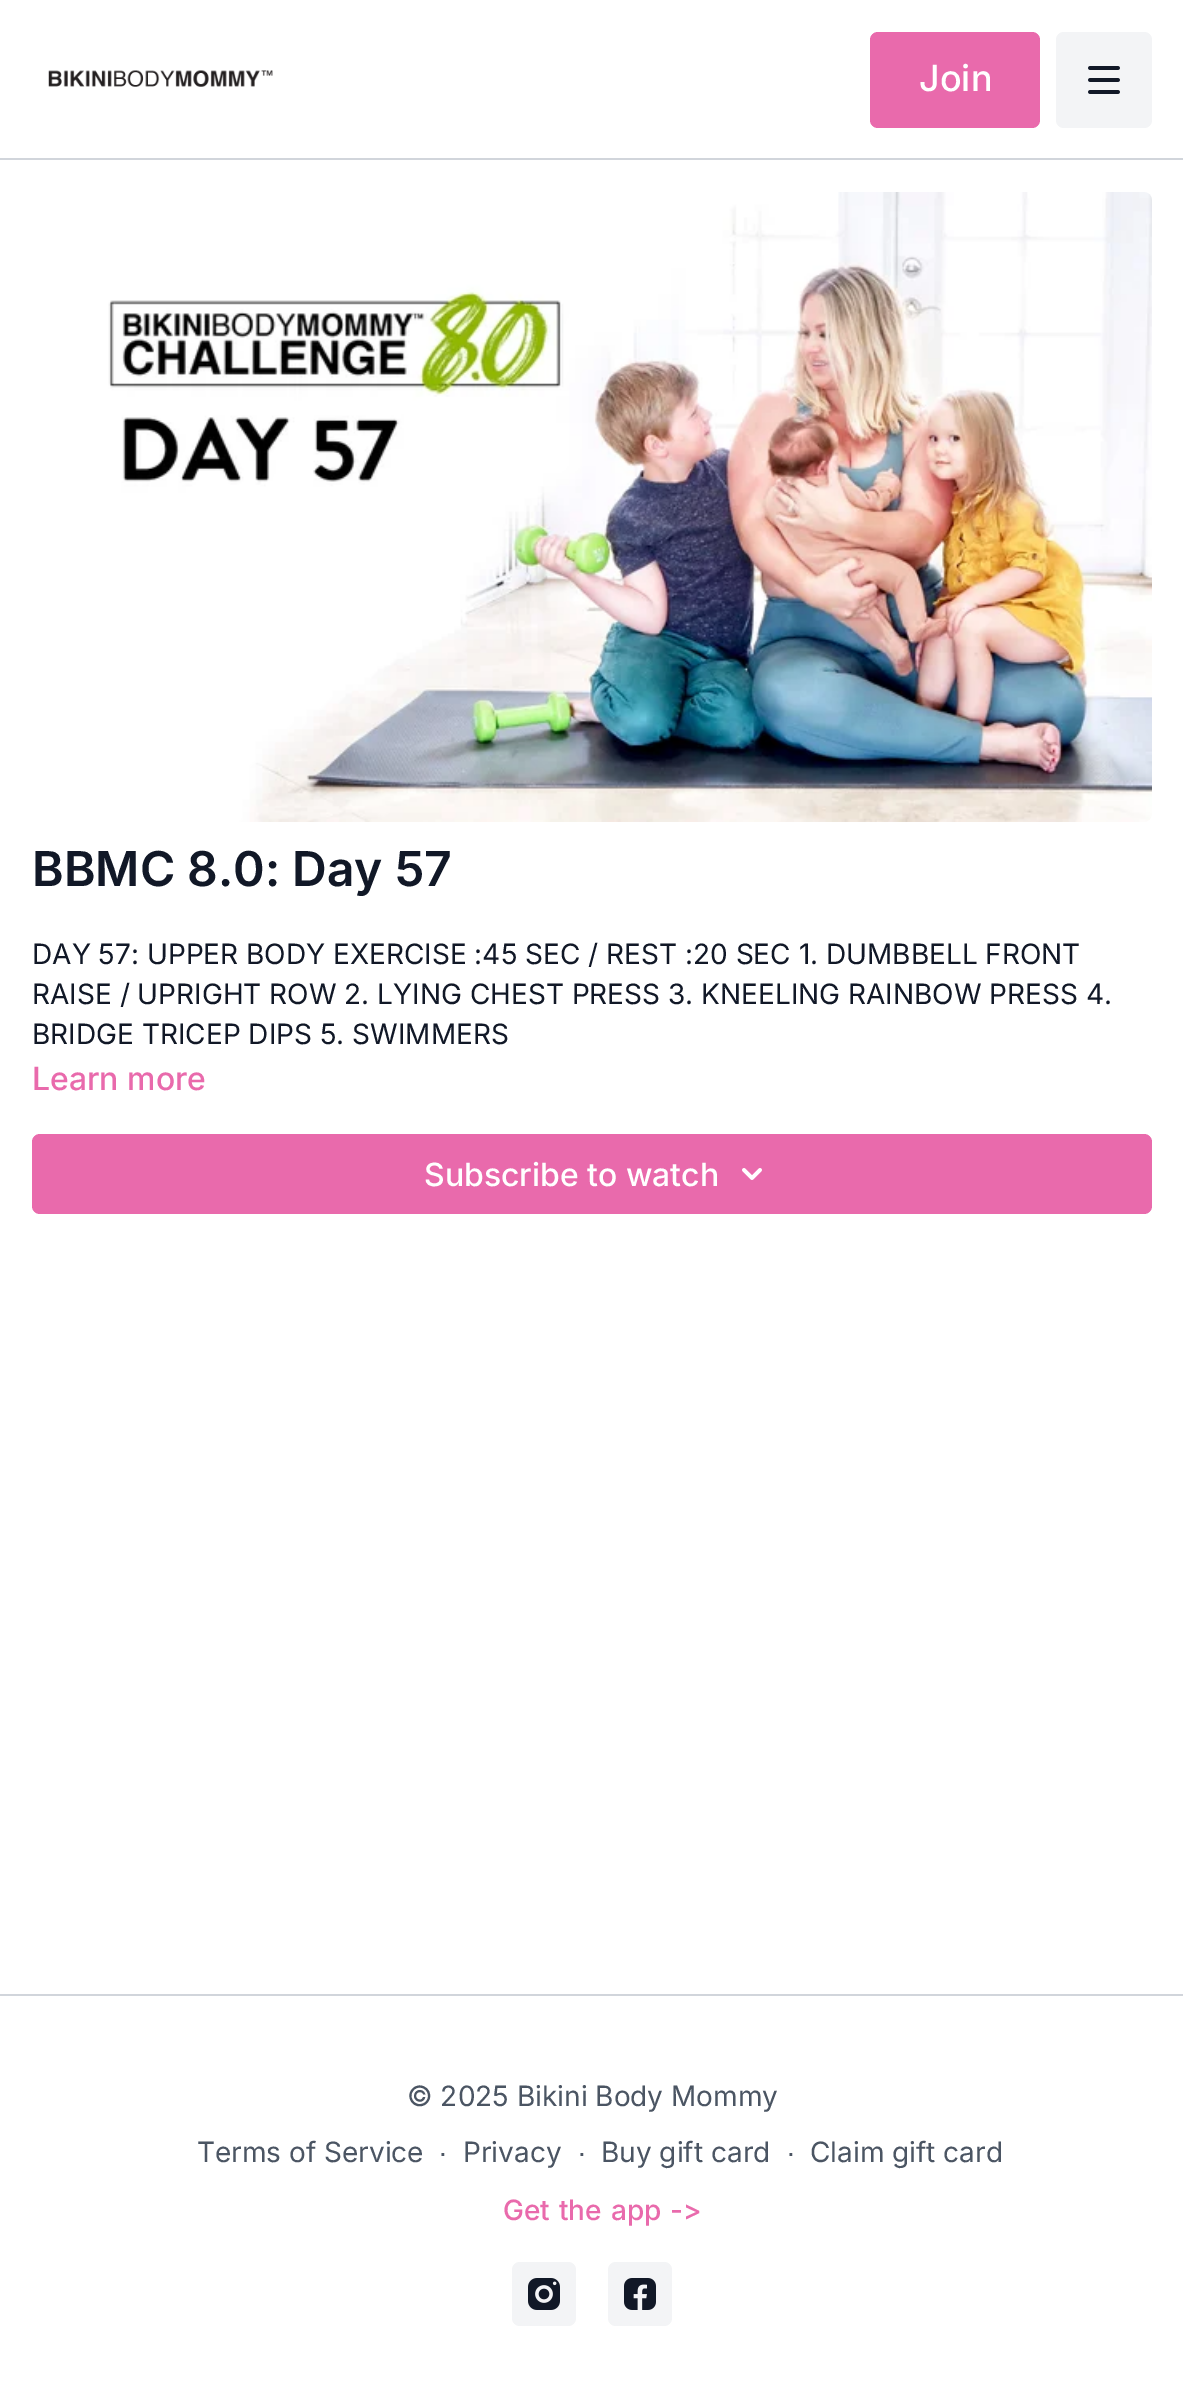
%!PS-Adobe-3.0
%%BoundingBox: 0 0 1183 2390
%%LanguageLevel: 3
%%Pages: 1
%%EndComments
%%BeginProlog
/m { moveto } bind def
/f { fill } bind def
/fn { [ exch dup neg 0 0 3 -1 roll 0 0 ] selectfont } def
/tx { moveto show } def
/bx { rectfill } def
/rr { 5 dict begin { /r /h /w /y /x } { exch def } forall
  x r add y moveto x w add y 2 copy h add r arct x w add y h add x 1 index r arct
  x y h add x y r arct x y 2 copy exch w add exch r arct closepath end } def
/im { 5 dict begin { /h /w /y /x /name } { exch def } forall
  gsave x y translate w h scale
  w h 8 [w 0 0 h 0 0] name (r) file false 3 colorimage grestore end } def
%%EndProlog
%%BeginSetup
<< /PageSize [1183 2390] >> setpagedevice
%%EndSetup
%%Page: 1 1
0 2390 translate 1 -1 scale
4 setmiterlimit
1 setgray
0 0 1183 2390 bx
0.82 0.835 0.859 setrgbcolor
0 158 1183 2 bx
(image0.raw) 48 70 225 17 im
0.914 0.416 0.675 setrgbcolor
870 32 170 96 8 rr f
/Inter-Medium 36 fn
1 setgray
(Join) 919 91 tx
0.953 0.957 0.965 setrgbcolor
1056 32 96 96 8 rr f
(image1.raw) 1088 66 32 28 im
(image2.raw) 108 192 1044 630 im
/Inter-SemiBold 48 fn
0.067 0.094 0.153 setrgbcolor
(BBMC 8.0: Day 57) 32 886 tx
/Inter-Regular 28 fn
(DAY 57: UPPER BODY EXERCISE :45 SEC / REST :20 SEC 1. DUMBBELL FRONT) 32 964 tx
(RAISE / UPRIGHT ROW 2. LYING CHEST PRESS 3. KNEELING RAINBOW PRESS 4.) 32 1004 tx
(BRIDGE TRICEP DIPS 5. SWIMMERS) 32 1044 tx
/Inter-Medium 32 fn
0.914 0.416 0.675 setrgbcolor
(Learn more) 32 1090 tx
32 1134 1120 80 8 rr f
1 setgray
(Subscribe to watch) 424 1186 tx
(image3.raw) 742 1168 20 12 im
0.82 0.835 0.859 setrgbcolor
0 1994 1183 2 bx
/Inter-Regular 28 fn
0.294 0.333 0.388 setrgbcolor
(© 2025 Bikini Body Mommy) 407 2106 tx
(Terms of Service) 197 2162 tx
/LiberationSans-Regular 28 fn
(∙) 439 2162 tx
/Inter-Regular 28 fn
(Privacy) 463 2162 tx
/LiberationSans-Regular 28 fn
(∙) 578 2162 tx
/Inter-Regular 28 fn
(Buy gift card) 601 2162 tx
/LiberationSans-Regular 28 fn
(∙) 787 2162 tx
/Inter-Regular 28 fn
(Claim gift card) 810 2162 tx
/Inter-Medium 28 fn
0.914 0.416 0.675 setrgbcolor
503 2220 m 1.5 0 32 (Get the app ->) widthshow
0.953 0.957 0.965 setrgbcolor
512 2262 64 64 8 rr f
(image4.raw) 528 2278 32 32 im
608 2262 64 64 8 rr f
(image5.raw) 624 2278 32 32 im
showpage
%%EOF
